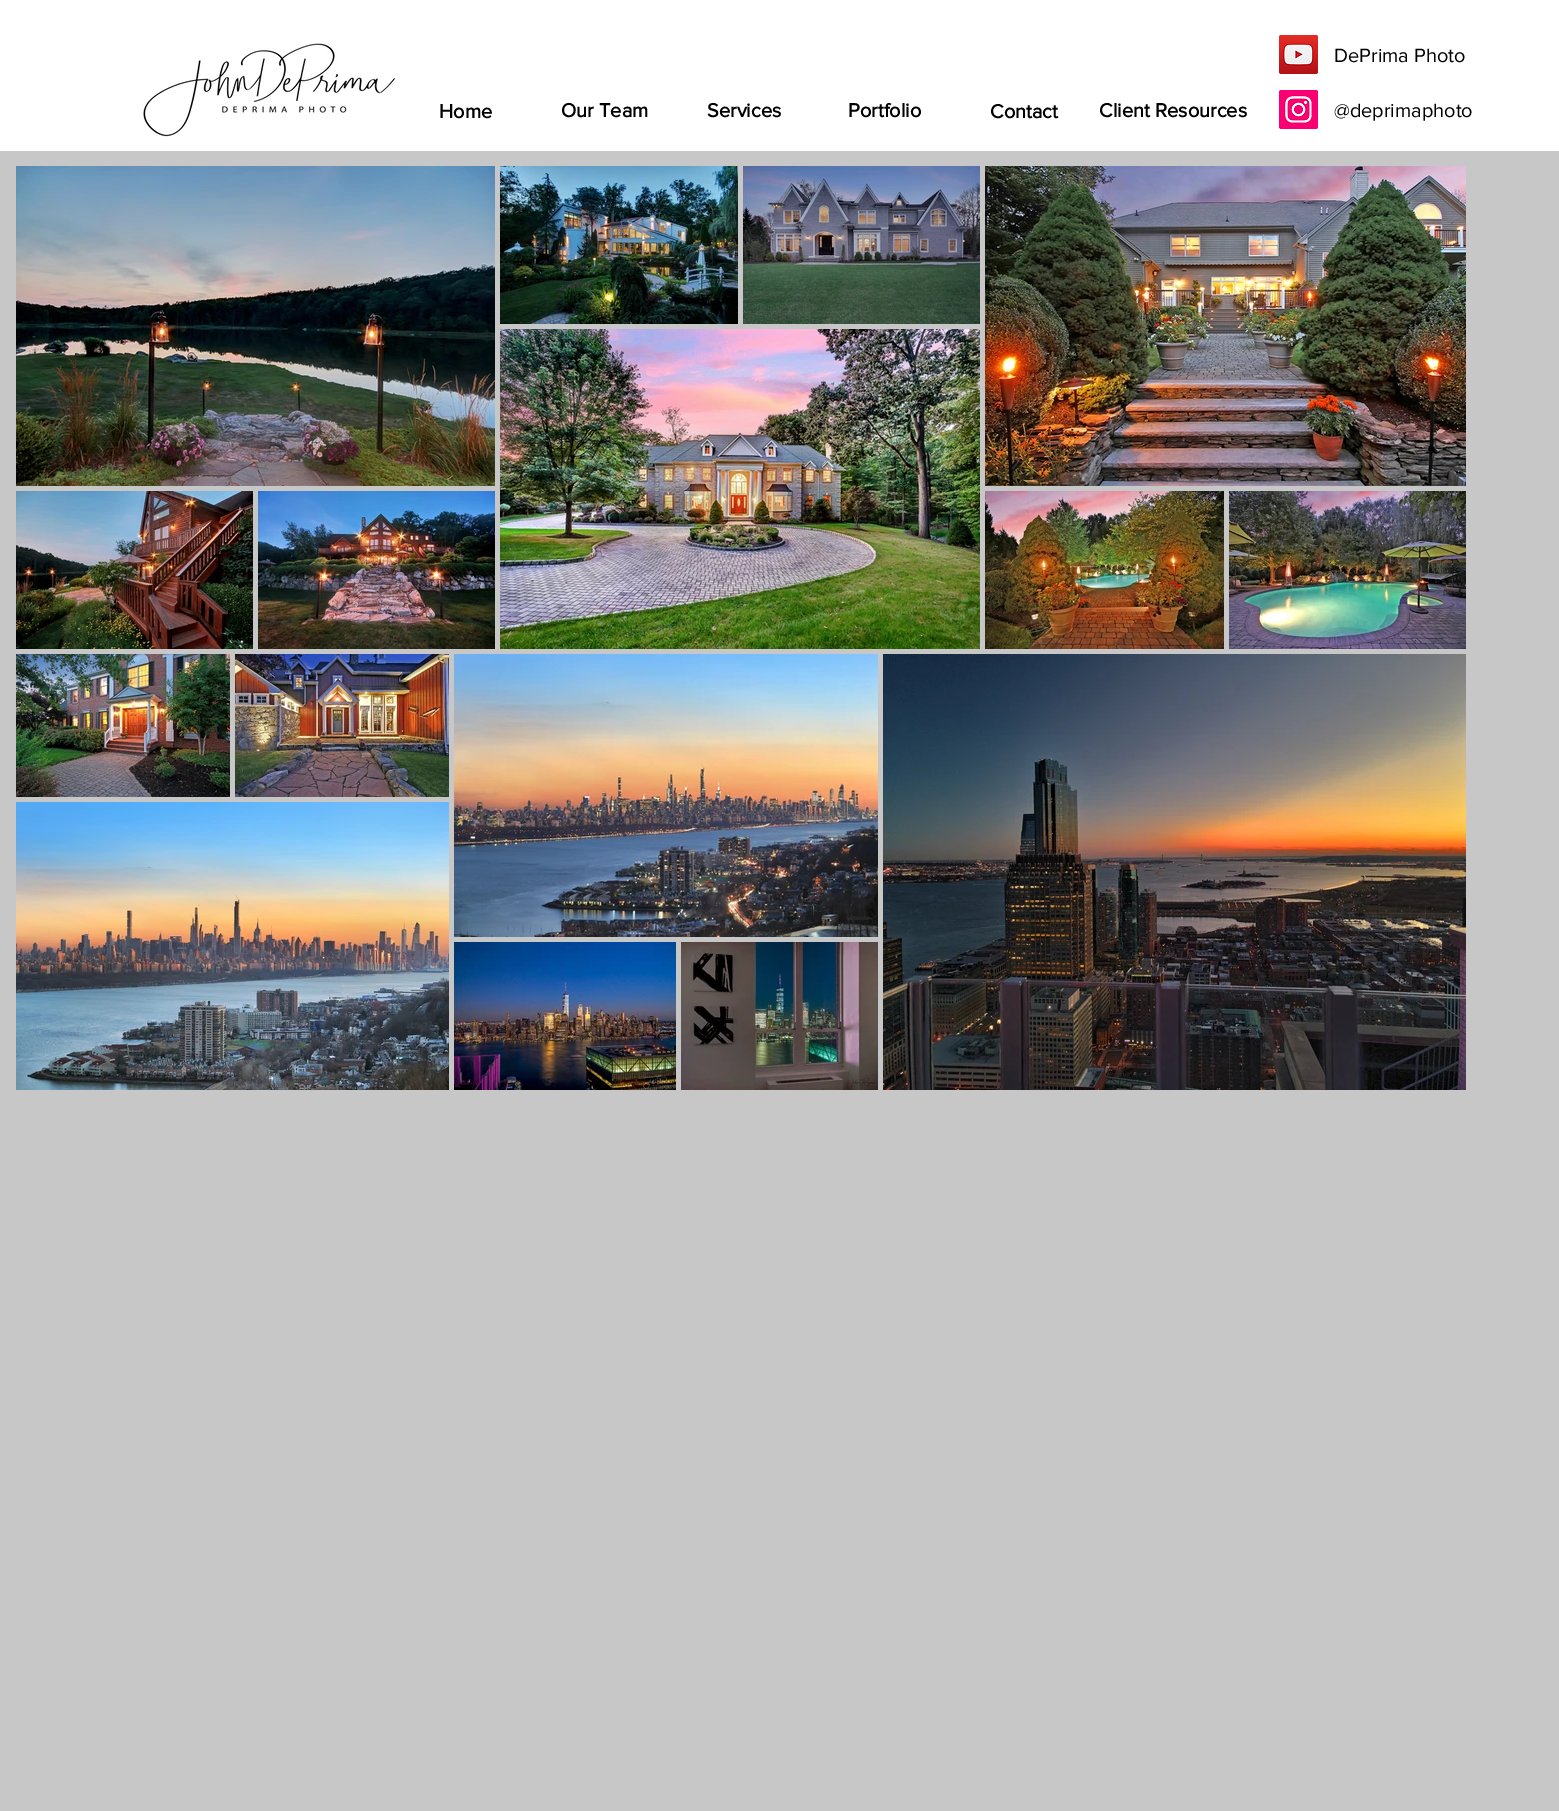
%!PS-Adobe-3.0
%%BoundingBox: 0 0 1559 1811
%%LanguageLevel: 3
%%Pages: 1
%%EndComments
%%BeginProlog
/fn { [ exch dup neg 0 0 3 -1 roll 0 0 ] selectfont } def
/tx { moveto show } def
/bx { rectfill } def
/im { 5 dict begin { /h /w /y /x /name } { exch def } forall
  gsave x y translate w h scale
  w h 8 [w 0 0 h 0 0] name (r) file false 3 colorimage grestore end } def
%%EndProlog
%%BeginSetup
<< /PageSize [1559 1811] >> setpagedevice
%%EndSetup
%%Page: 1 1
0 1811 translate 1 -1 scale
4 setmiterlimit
0.78 setgray
0 0 1559 1811 bx
1 setgray
0 0 1559 151 bx
(image0.raw) 143 43 253 94 im
(image1.raw) 1279 35 39 39 im
/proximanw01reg-Regular 20 fn
0 setgray
(DePrima Photo) 1334 62 tx
/proximanw01reg-Bold 20 fn
(Home) 439 118 tx
(Our Team) 561 117 tx
(Services) 707 117 tx
(Portfolio) 848 117 tx
(Contact) 990 118 tx
(Client Resources) 1099 117 tx
(image2.raw) 1279 90 39 39 im
/proximanw01reg-Regular 20 fn
(@deprimaphoto) 1334 117 tx
(image3.raw) 16 166 479 320 im
(image4.raw) 500 166 238 158 im
(image5.raw) 743 166 237 158 im
(image6.raw) 985 166 481 320 im
(image7.raw) 16 491 237 158 im
(image8.raw) 258 491 237 158 im
(image9.raw) 500 329 480 320 im
(image10.raw) 985 491 239 158 im
(image11.raw) 1229 491 237 158 im
(image12.raw) 16 654 214 143 im
(image13.raw) 235 654 214 143 im
(image14.raw) 454 654 424 283 im
(image15.raw) 883 654 583 436 im
(image16.raw) 16 802 433 288 im
(image17.raw) 454 942 222 148 im
(image18.raw) 681 942 197 148 im
showpage
%%EOF
